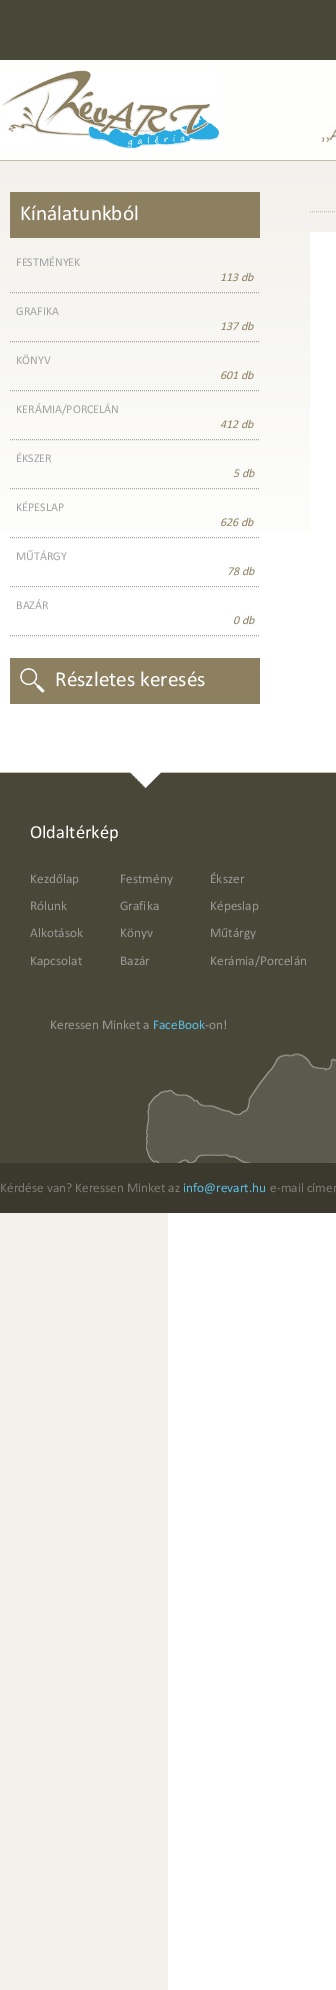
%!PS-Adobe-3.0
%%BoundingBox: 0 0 336 1990
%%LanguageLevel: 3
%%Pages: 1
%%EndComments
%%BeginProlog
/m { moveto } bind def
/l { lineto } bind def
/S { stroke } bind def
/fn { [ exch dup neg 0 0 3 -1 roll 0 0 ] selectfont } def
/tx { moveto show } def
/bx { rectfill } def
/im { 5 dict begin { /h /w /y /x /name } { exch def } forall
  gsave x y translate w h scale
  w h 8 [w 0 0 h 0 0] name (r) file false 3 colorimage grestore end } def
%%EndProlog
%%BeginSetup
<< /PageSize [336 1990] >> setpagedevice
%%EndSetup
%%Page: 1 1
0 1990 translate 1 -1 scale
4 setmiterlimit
1 setgray
0 0 336 1990 bx
0.286 0.278 0.22 setrgbcolor
0 0 336 60 bx
0.996 0.996 0.988 setrgbcolor
0 60 336 100 bx
0.773 0.753 0.678 setrgbcolor
0 160 336 1 bx
(image0.raw) 1 70 219 79 im
(image1.raw) 321 124 15 19 im
(image2.raw) 0 161 336 370 im
0.553 0.502 0.38 setrgbcolor
10 192 250 46 bx
/Calibri-Regular 21.25 fn
1 setgray
(Kínálatunkból) 20 220 tx
/Calibri-Regular 12 fn
0.639 0.639 0.647 setrgbcolor
(FESTMÉNYEK) 16 266 tx
[1 1] 0 setdash
10 292.5 m 260 292.5 l S
/Calibri-Italic 12 fn
0.553 0.502 0.38 setrgbcolor
(113 db) 220 281 tx
/Calibri-Regular 12 fn
0.639 0.639 0.647 setrgbcolor
(GRAFIKA) 16 315 tx
10 341.5 m 260 341.5 l S
/Calibri-Italic 12 fn
0.553 0.502 0.38 setrgbcolor
(137 db) 220 330 tx
/Calibri-Regular 12 fn
0.639 0.639 0.647 setrgbcolor
(KÖNYV) 16 364 tx
10 390.5 m 260 390.5 l S
/Calibri-Italic 12 fn
0.553 0.502 0.38 setrgbcolor
(601 db) 220 379 tx
/Calibri-Regular 12 fn
0.639 0.639 0.647 setrgbcolor
(KERÁMIA/PORCELÁN) 16 413 tx
10 439.5 m 260 439.5 l S
/Calibri-Italic 12 fn
0.553 0.502 0.38 setrgbcolor
(412 db) 220 428 tx
/Calibri-Regular 12 fn
0.639 0.639 0.647 setrgbcolor
(ÉKSZER) 16 462 tx
10 488.5 m 260 488.5 l S
/Calibri-Italic 12 fn
0.553 0.502 0.38 setrgbcolor
(5 db) 233 477 tx
/Calibri-Regular 12 fn
0.639 0.639 0.647 setrgbcolor
(KÉPESLAP) 16 511 tx
10 537.5 m 260 537.5 l S
/Calibri-Italic 12 fn
0.553 0.502 0.38 setrgbcolor
(626 db) 220 526 tx
/Calibri-Regular 12 fn
0.639 0.639 0.647 setrgbcolor
(MŰTÁRGY) 16 560 tx
10 586.5 m 260 586.5 l S
/Calibri-Italic 12 fn
0.553 0.502 0.38 setrgbcolor
(78 db) 227 575 tx
/Calibri-Regular 12 fn
0.639 0.639 0.647 setrgbcolor
(BAZÁR) 16 609 tx
10 635.5 m 260 635.5 l S
/Calibri-Italic 12 fn
0.553 0.502 0.38 setrgbcolor
(0 db) 233 624 tx
10 658 250 46 bx
(image3.raw) 20 668 25 25 im
/Calibri-Regular 21.25 fn
1 setgray
(Részletes keresés) 55 686 tx
0.741 0.741 0.745 setrgbcolor
310 211.5 m 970 211.5 l S
1 setgray
310 232 26 299 bx
0.286 0.278 0.22 setrgbcolor
0 773 336 390 bx
0.773 0.753 0.678 setrgbcolor
0 772 336 1 bx
(image4.raw) 146 1053 190 110 im
(image5.raw) 130 772 31 16 im
/Calibri-Regular 18.5 fn
1 setgray
(Oldaltérkép) 30 838 tx
/Calibri-Regular 13.3 fn
0.596 0.592 0.58 setrgbcolor
(Kezdőlap) 30 883 tx
(Festmény) 120 883 tx
(Ékszer) 210 883 tx
(Rólunk) 30 910 tx
(Grafika) 120 910 tx
(Képeslap) 210 910 tx
(Alkotások) 30 937 tx
(Könyv) 120 937 tx
(Műtárgy) 210 937 tx
(Kapcsolat) 30 965 tx
(Bazár) 120 965 tx
(Kerámia/Porcelán) 210 965 tx
(Keressen Minket a) 50 1029 tx
0.361 0.741 0.894 setrgbcolor
(FaceBook) 153 1029 tx
0.596 0.592 0.58 setrgbcolor
(-on!) 205 1029 tx
0.231 0.224 0.176 setrgbcolor
0 1163 336 50 bx
0.49 0.486 0.451 setrgbcolor
(Kérdése van? Keressen Minket az) 0 1192 tx
0.361 0.741 0.894 setrgbcolor
(info@revart.hu) 183 1192 tx
0.49 0.486 0.451 setrgbcolor
(e-mail címen) 270 1192 tx
0.949 0.945 0.925 setrgbcolor
0 1213 168 777 bx
showpage
%%EOF
